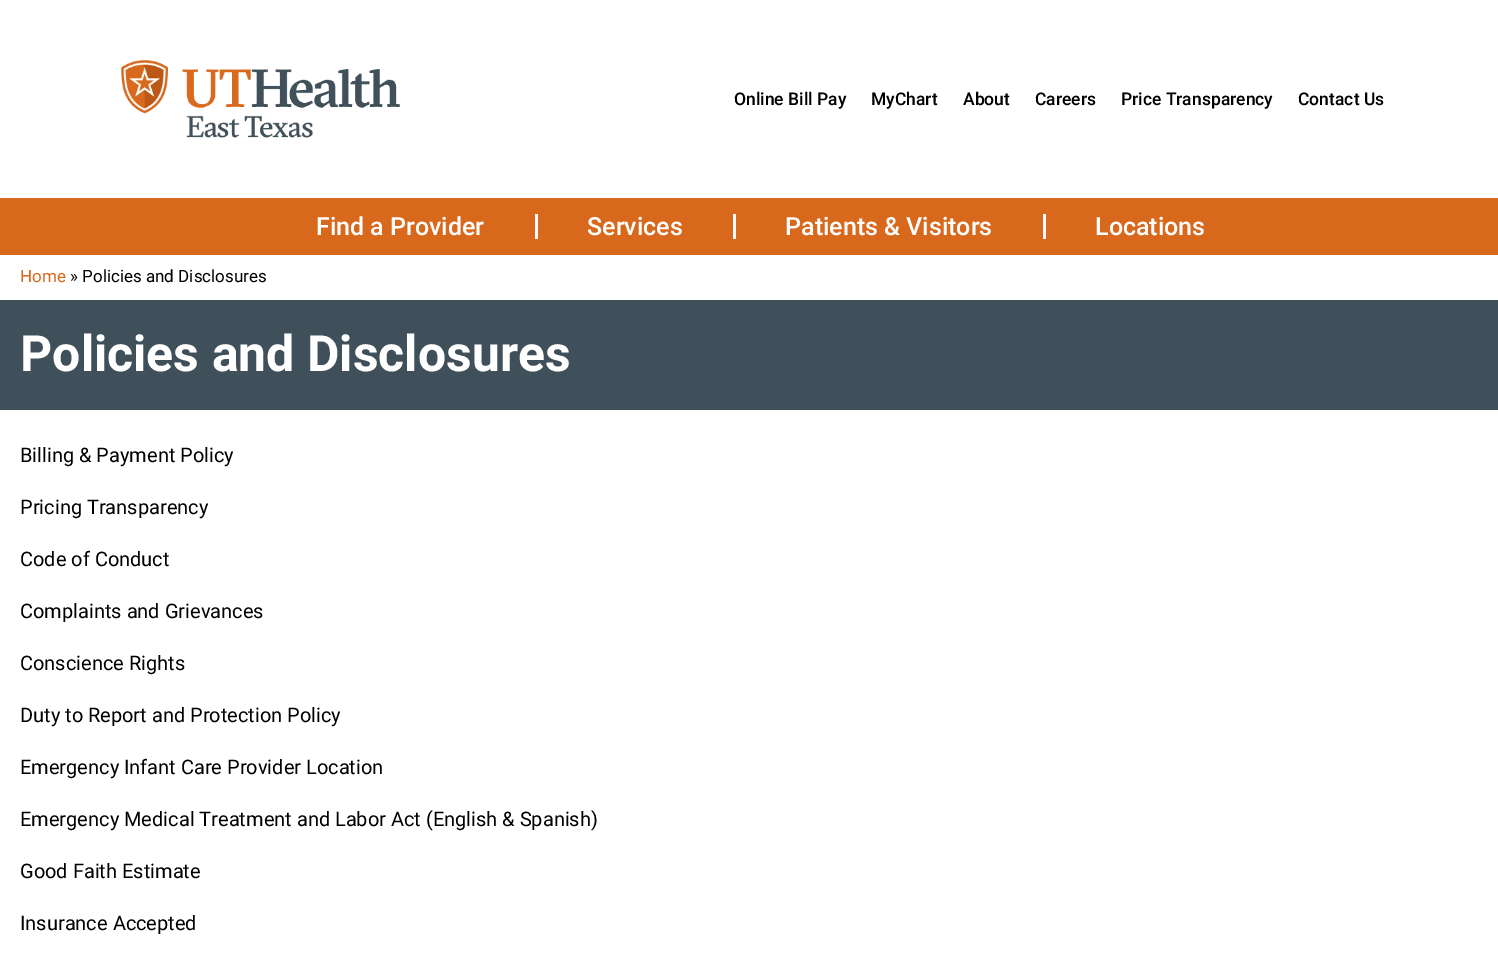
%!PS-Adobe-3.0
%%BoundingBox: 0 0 1498 972
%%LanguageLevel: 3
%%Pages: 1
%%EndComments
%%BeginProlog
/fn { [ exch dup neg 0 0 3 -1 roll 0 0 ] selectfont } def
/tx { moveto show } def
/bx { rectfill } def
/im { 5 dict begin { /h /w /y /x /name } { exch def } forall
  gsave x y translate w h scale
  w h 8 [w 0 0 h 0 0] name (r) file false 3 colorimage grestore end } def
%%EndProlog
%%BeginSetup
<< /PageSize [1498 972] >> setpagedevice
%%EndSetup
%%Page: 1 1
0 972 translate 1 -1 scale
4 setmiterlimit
1 setgray
0 0 1498 972 bx
(image0.raw) 121 60 279 78 im
/Roboto-Medium 17.5 fn
0 setgray
(Online Bill Pay) 734 105 tx
(MyChart) 871 105 tx
(About) 963 105 tx
(Careers) 1035 105 tx
(Price Transparency) 1121 105 tx
(Contact Us) 1298 105 tx
0.847 0.408 0.11 setrgbcolor
0 198 1498 57 bx
/Roboto-Medium 25 fn
1 setgray
(Find a Provider) 316 235 tx
535 214 3 25 bx
(Services) 587 235 tx
733 214 3 25 bx
(Patients & Visitors) 785 235 tx
1043 214 3 25 bx
(Locations) 1095 235 tx
/Roboto-Regular 17 fn
0.847 0.408 0.11 setrgbcolor
(Home) 20 282 tx
0 setgray
(» Policies and Disclosures) 70 282 tx
0.247 0.314 0.353 setrgbcolor
0 300 1498 110 bx
/Roboto-Bold 50 fn
1 setgray
(Policies and Disclosures) 20 371 tx
/Roboto-Regular 20 fn
0 setgray
(Billing & Payment Policy) 20 462 tx
(Pricing Transparency) 20 514 tx
(Code of Conduct) 20 566 tx
(Complaints and Grievances) 20 618 tx
(Conscience Rights) 20 670 tx
(Duty to Report and Protection Policy) 20 722 tx
(Emergency Infant Care Provider Location) 20 774 tx
(Emergency Medical Treatment and Labor Act \(English & Spanish\)) 20 826 tx
(Good Faith Estimate) 20 878 tx
(Insurance Accepted) 20 930 tx
showpage
%%EOF
